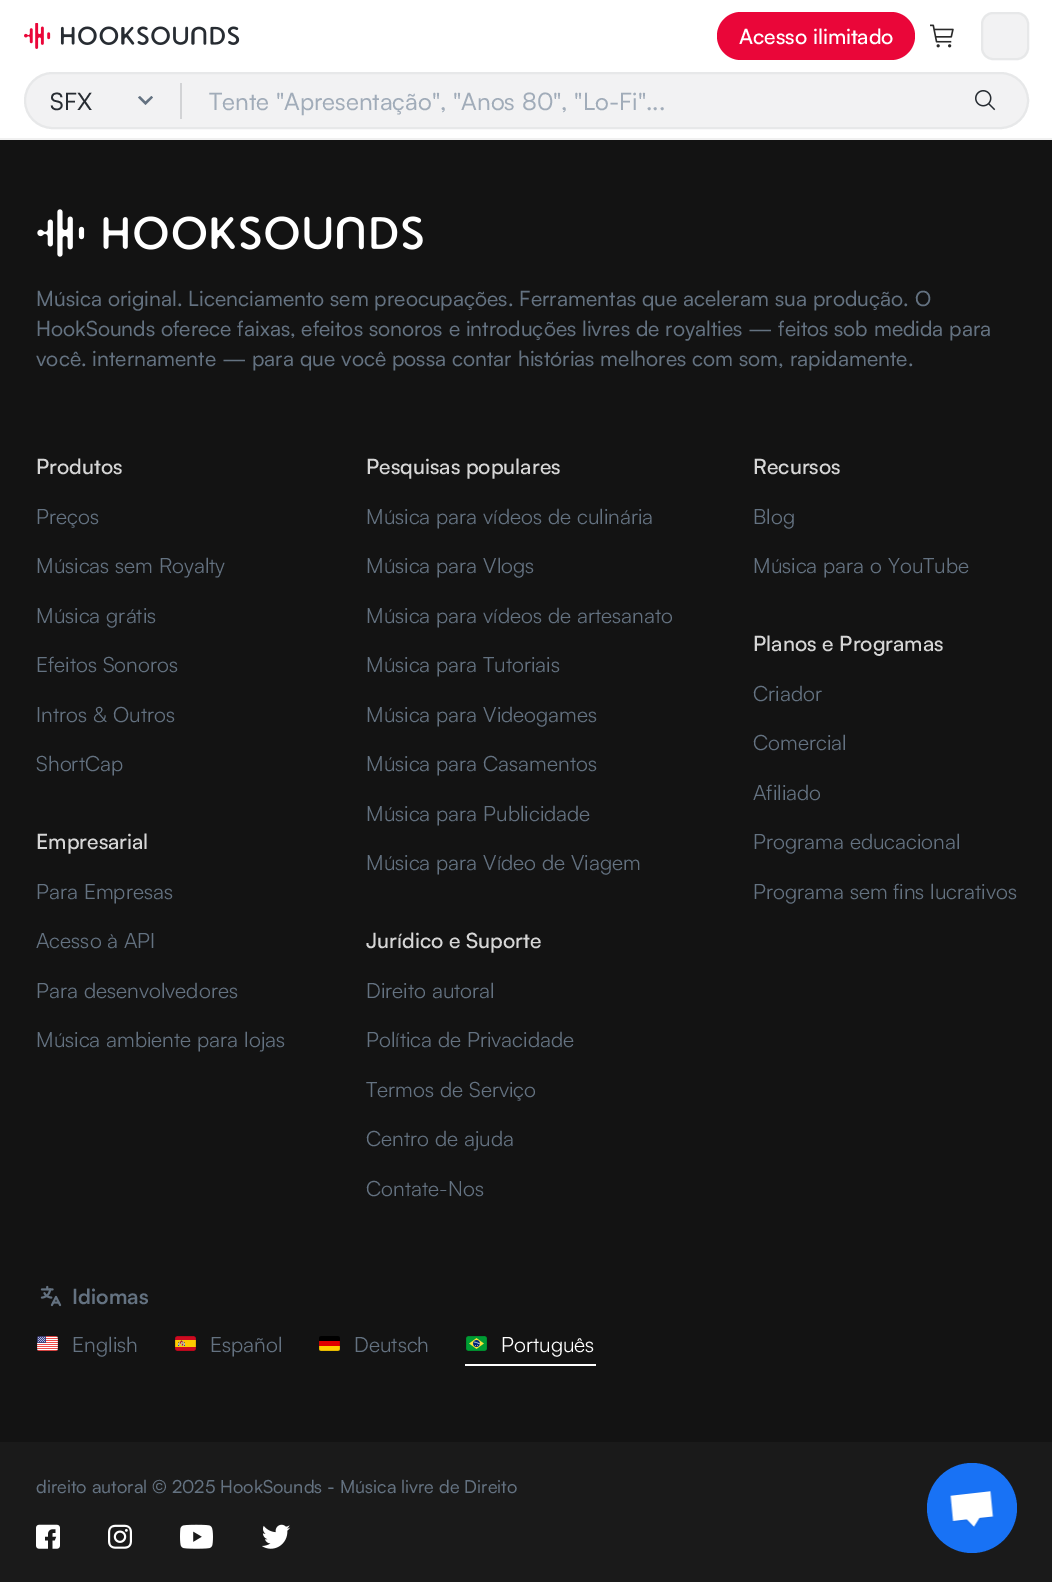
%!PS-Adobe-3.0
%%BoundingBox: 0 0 1052 1582
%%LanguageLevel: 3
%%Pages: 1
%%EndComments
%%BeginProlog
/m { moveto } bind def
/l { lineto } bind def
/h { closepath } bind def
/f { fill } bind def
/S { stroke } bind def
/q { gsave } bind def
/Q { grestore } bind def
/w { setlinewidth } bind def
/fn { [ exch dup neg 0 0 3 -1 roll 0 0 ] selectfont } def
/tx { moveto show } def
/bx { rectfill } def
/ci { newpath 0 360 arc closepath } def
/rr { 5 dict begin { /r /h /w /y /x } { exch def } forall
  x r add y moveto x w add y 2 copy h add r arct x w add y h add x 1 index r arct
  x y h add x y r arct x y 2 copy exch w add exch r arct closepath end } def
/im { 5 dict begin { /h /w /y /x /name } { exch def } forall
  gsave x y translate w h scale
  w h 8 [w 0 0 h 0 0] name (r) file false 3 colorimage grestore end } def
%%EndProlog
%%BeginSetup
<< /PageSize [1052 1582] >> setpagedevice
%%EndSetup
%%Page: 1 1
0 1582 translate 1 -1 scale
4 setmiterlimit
0.075 setgray
0 0 1052 1582 bx
1 setgray
0 0 1052 138 bx
(image0.raw) 24 23 216 26 im
0.918 0.024 0.224 setrgbcolor
717 12 198 48 24 rr f
/Satoshi-SemiBold 21 fn
1 setgray
(Acesso ilimitado) 739 44 tx
(image1.raw) 930 24 24 24 im
0.949 0.949 0.953 setrgbcolor
982 13 46 46 11 rr q f Q
0.906 0.91 0.914 setrgbcolor
2 w
S
0.941 setgray
0 138 1052 2 bx
0.949 0.949 0.953 setrgbcolor
25 73 1003 55 27.5 rr q f Q
0.906 0.91 0.914 setrgbcolor
S
/Satoshi-Medium 24 fn
0.153 0.173 0.196 setrgbcolor
(SFX) 50 110 tx
0.392 0.447 0.506 setrgbcolor
145.5 105 m 138 97.5 l 140 96 l 145.5 101.5 l 151.5 96 l 153 97.5 l h f
0.824 0.827 0.835 setrgbcolor
180 83 2 36 bx
0.631 0.675 0.725 setrgbcolor
(Tente "Apresentação", "Anos 80", "Lo-Fi"...) 209 110 tx
(image2.raw) 975 90 21 21 im
(image3.raw) 37 209 386 48 im
/Satoshi-Medium 21 fn
0.392 0.447 0.506 setrgbcolor
(Música original. Licenciamento sem preocupações. Ferramentas que aceleram sua produção. O) 36 306 tx
(HookSounds oferece faixas, efeitos sonoros e introduções livres de royalties — feitos sob medida para) 36 336 tx
(você. internamente — para que você possa contar histórias melhores com som, rapidamente.) 36 366 tx
/Satoshi-SemiBold 21 fn
0.839 setgray
(Produtos) 36 474 tx
/Satoshi-Regular 21 fn
0.392 0.447 0.506 setrgbcolor
(Preços) 36 524 tx
(Músicas sem Royalty) 36 573 tx
(Música grátis) 36 623 tx
(Efeitos Sonoros) 36 672 tx
(Intros & Outros) 36 722 tx
(ShortCap) 36 771 tx
/Satoshi-SemiBold 21 fn
0.839 setgray
(Empresarial) 36 849 tx
/Satoshi-Regular 21 fn
0.392 0.447 0.506 setrgbcolor
(Para Empresas) 36 899 tx
(Acesso à API) 36 948 tx
(Para desenvolvedores) 36 998 tx
(Música ambiente para lojas) 36 1047 tx
/Satoshi-SemiBold 21 fn
0.839 setgray
(Pesquisas populares) 366 474 tx
/Satoshi-Regular 21 fn
0.392 0.447 0.506 setrgbcolor
(Música para vídeos de culinária) 366 524 tx
(Música para Vlogs) 366 573 tx
(Música para vídeos de artesanato) 366 623 tx
(Música para Tutoriais) 366 672 tx
(Música para Videogames) 366 722 tx
(Música para Casamentos) 366 771 tx
(Música para Publicidade) 366 821 tx
(Música para Vídeo de Viagem) 366 870 tx
/Satoshi-SemiBold 21 fn
0.839 setgray
(Jurídico e Suporte) 366 948 tx
/Satoshi-Regular 21 fn
0.392 0.447 0.506 setrgbcolor
(Direito autoral) 366 998 tx
(Política de Privacidade) 366 1047 tx
(Termos de Serviço) 366 1097 tx
(Centro de ajuda) 366 1146 tx
(Contate-Nos) 366 1196 tx
/Satoshi-SemiBold 21 fn
0.839 setgray
(Recursos) 753 474 tx
/Satoshi-Regular 21 fn
0.392 0.447 0.506 setrgbcolor
(Blog) 753 524 tx
(Música para o YouTube) 753 573 tx
/Satoshi-SemiBold 21 fn
0.839 setgray
(Planos e Programas) 753 651 tx
/Satoshi-Regular 21 fn
0.392 0.447 0.506 setrgbcolor
(Criador) 753 701 tx
(Comercial) 753 750 tx
(Afiliado) 753 800 tx
(Programa educacional) 753 849 tx
(Programa sem fins lucrativos) 753 899 tx
(image4.raw) 40 1285 22 22 im
/Satoshi-Bold 21 fn
(Idiomas) 72 1304 tx
(image5.raw) 37 1336 21 15 im
/Satoshi-Regular 21 fn
(English) 72 1352 tx
(image6.raw) 175 1336 21 15 im
(Español) 210 1352 tx
(image7.raw) 319 1336 21 15 im
(Deutsch) 354 1352 tx
1 setgray
465 1364 131 2 bx
(image8.raw) 466 1336 21 15 im
(Português) 501 1352 tx
0.102 setgray
0 1442 1052 140 bx
/Satoshi-Medium 18 fn
0.392 0.447 0.506 setrgbcolor
(direito autoral © 2025 HookSounds - Música livre de Direito) 36 1493 tx
(image9.raw) 36 1524 24 25 im
(image10.raw) 108 1524 24 25 im
(image11.raw) 180 1524 33 25 im
(image12.raw) 262 1524 29 25 im
0.094 0.447 0.961 setrgbcolor
972 1508 45 ci f
(image13.raw) 950 1491 44 36 im
showpage
%%EOF
